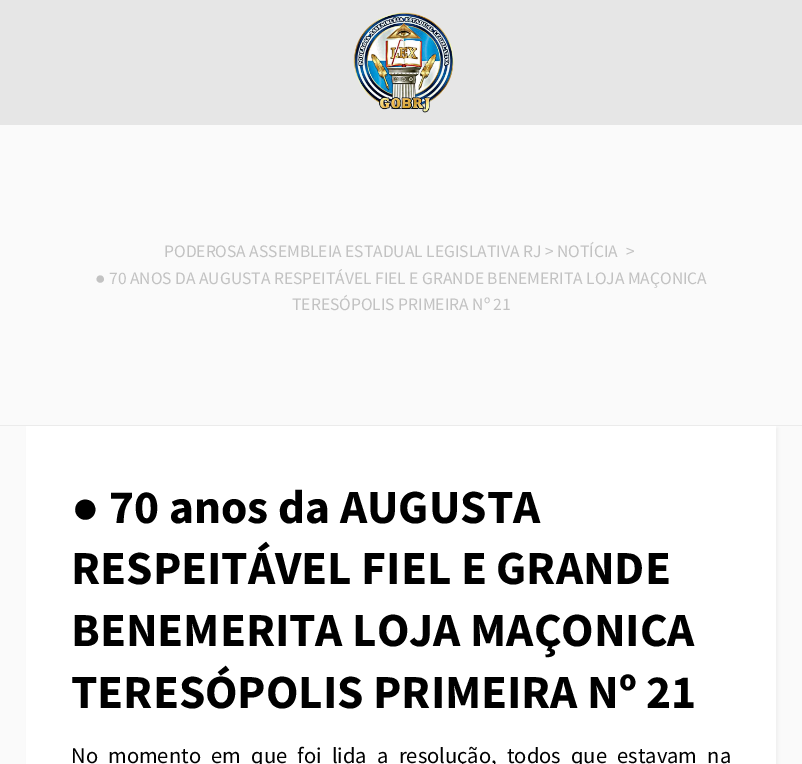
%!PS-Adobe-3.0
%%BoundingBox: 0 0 802 764
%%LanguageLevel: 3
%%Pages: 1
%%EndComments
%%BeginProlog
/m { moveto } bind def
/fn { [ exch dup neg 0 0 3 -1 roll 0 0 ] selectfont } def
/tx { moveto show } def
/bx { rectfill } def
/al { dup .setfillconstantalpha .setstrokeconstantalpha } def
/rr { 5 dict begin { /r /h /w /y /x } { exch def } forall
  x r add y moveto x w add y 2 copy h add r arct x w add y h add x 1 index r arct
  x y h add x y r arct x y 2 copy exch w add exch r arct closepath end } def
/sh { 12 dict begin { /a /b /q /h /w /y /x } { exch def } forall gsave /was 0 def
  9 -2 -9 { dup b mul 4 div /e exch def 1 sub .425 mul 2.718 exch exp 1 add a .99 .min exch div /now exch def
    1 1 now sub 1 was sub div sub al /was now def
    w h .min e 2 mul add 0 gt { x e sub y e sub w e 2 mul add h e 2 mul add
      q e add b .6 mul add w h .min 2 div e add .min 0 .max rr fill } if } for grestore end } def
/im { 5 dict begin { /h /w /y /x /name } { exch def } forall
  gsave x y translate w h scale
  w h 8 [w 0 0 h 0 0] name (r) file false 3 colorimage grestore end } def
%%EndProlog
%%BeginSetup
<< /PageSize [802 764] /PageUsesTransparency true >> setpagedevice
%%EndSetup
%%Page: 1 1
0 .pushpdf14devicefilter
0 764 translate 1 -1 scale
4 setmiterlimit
0.98 setgray
0 0 802 764 bx
0.902 setgray
0 0 802 125 bx
(image0.raw) 353 12 101 101 im
0.933 setgray
28 428 750 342 0 2 1 sh
0.922 setgray
0 425 802 1 bx
/SourceSansPro-Regular 17.5 fn
0.761 setgray
(PODEROSA ASSEMBLEIA ESTADUAL LEGISLATIVA RJ > NOTÍCIA) 164 257 tx
(>) 626 257 tx
/LiberationSans-Regular 17.5 fn
(●) 95 284 tx
/SourceSansPro-Regular 17.5 fn
(70 ANOS DA AUGUSTA RESPEITÁVEL FIEL E GRANDE BENEMERITA LOJA MAÇONICA) 109 284 tx
(TERESÓPOLIS PRIMEIRA Nº 21) 292 310 tx
1 setgray
26 426 750 338 bx
/LiberationSans-Bold 47.5 fn
0 setgray
(●) 71 523 tx
/SourceSansPro-Bold 47.5 fn
(70 anos da AUGUSTA) 109 523 tx
(RESPEITÁVEL FIEL E GRANDE) 71 584 tx
(BENEMERITA LOJA MAÇONICA) 71 646 tx
(TERESÓPOLIS PRIMEIRA Nº 21) 71 708 tx
/SourceSansPro-Regular 22.5 fn
71 763 m 5.75 0 32 (No momento em que foi lida a resolução, todos que estavam na) widthshow
.poppdf14devicefilter showpage
%%EOF
